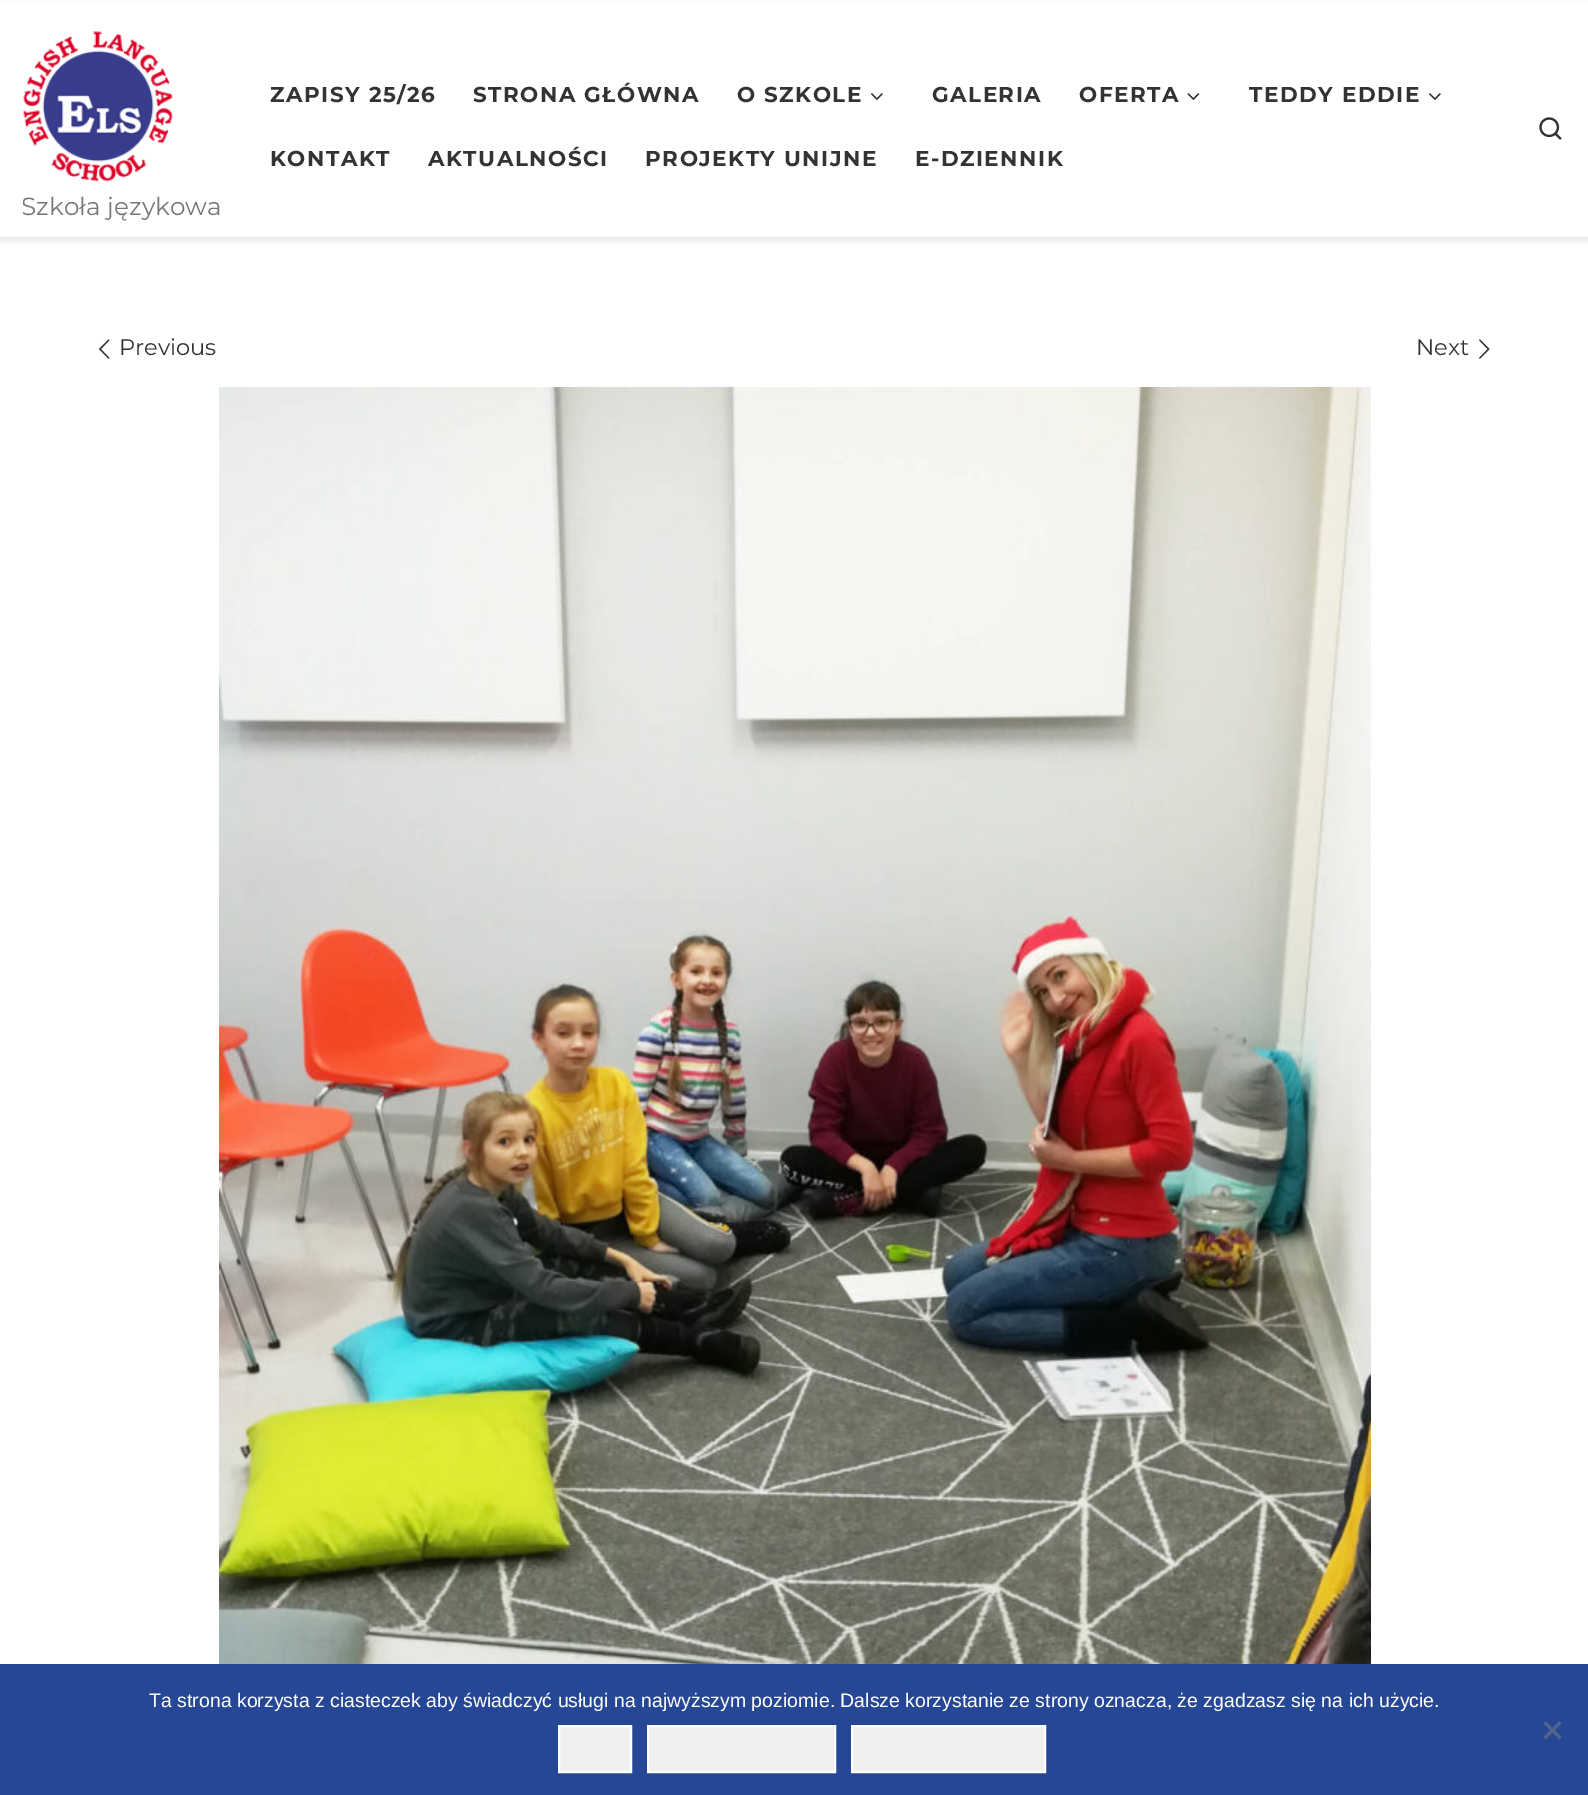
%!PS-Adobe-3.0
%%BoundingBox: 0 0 1588 1795
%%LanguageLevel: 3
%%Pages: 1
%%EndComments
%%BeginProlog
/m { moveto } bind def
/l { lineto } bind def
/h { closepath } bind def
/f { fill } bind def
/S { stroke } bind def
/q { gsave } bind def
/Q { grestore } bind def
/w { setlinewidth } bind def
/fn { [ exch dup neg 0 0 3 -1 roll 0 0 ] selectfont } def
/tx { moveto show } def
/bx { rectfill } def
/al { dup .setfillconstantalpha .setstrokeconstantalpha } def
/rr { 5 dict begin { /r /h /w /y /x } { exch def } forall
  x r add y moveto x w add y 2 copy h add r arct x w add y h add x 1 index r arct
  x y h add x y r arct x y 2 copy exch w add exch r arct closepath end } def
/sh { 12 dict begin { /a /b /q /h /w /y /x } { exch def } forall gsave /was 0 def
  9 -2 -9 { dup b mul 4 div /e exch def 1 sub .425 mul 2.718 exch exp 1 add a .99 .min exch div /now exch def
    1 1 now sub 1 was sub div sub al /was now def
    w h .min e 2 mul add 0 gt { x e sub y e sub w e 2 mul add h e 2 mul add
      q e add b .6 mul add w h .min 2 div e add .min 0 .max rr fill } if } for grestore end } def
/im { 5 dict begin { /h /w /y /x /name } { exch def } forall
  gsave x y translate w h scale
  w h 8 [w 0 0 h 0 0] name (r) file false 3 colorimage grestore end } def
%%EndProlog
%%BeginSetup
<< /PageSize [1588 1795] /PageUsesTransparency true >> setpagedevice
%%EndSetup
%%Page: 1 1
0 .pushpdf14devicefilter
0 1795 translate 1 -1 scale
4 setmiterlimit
1 setgray
0 0 1588 1795 bx
0.4 setgray
0 3 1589 239 0 1.5 0.08 sh
1 setgray
0 2 1588 235 bx
0.925 setgray
0 237 1588 2 bx
/Montserrat-Bold 21.5 fn
0.2 setgray
270 102 m 1.5 0 (ZAPISY 25/26) ashow
473 102 m 1.5 0 (STRONA GŁÓWNA) ashow
737 102 m 1.5 0 (O SZKOLE) ashow
(image0.raw) 871 93 12 7 im
932 102 m 1.5 0 (GALERIA) ashow
1079 102 m 1.5 0 (OFERTA) ashow
(image1.raw) 1187 93 13 7 im
1249 102 m 1.5 0 (TEDDY EDDIE) ashow
(image0.raw) 1429 93 12 7 im
270 166 m 1.5 0 (KONTAKT) ashow
428 166 m 1.5 0 (AKTUALNOŚCI) ashow
645 166 m 1.5 0 (PROJEKTY UNIJNE) ashow
915 166 m 1.5 0 (E-DZIENNIK) ashow
(image2.raw) 1539 117 23 23 im
(image3.raw) 22 31 151 151 im
q
23 17 202 220 rectclip
/Montserrat-Regular 24.75 fn
0.467 setgray
(Szkoła językowa) 21 215 tx
Q
(image4.raw) 99 339 11 20 im
/Montserrat-Regular 22.5 fn
(Previous) 119 355 tx
(Next) 1416 355 tx
(image5.raw) 1479 339 11 20 im
(image6.raw) 219 387 1152 1277 im
0.149 0.278 0.588 setrgbcolor
0 1664 1588 131 bx
/LiberationSans-Regular 19.5 fn
1 setgray
(Ta strona korzysta z ciasteczek aby świadczyć usługi na najwyższym poziomie. Dalsze korzystanie ze strony oznacza, że zgadzasz się na ich użycie.) 149 1707 tx
0.937 setgray
559 1726 m 631 1726 l 631 1772 l 559 1772 l h q f Q
1 setgray
2 w
S
0.937 setgray
648 1726 m 835 1726 l 835 1772 l 648 1772 l h q f Q
1 setgray
S
0.937 setgray
852 1726 m 1045 1726 l 1045 1772 l 852 1772 l h q f Q
1 setgray
S
0.325 0.392 0.545 setrgbcolor
1559.5 1721 m 1561.5 1723.5 l 1545.5 1739.5 l 1543.5 1737 l h f
1543.5 1723.5 m 1545.5 1721 l 1561.5 1737 l 1559.5 1739.5 l h f
.poppdf14devicefilter showpage
%%EOF
